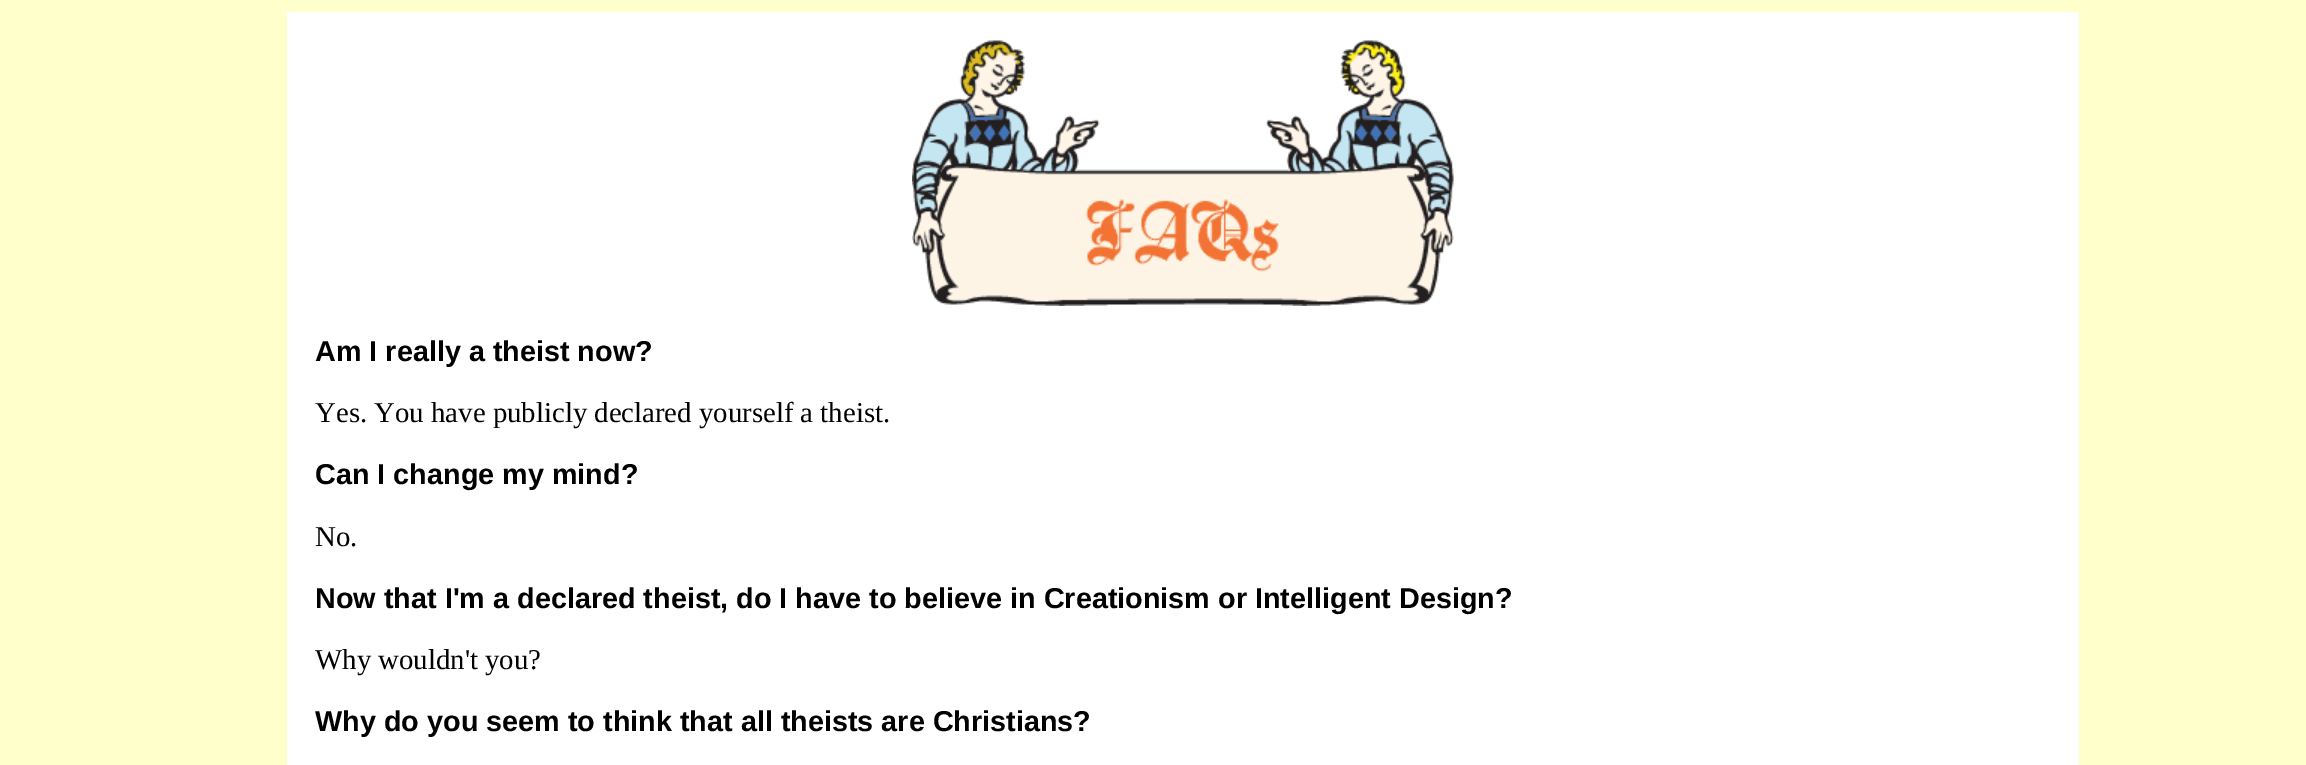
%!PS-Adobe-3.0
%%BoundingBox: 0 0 2306 765
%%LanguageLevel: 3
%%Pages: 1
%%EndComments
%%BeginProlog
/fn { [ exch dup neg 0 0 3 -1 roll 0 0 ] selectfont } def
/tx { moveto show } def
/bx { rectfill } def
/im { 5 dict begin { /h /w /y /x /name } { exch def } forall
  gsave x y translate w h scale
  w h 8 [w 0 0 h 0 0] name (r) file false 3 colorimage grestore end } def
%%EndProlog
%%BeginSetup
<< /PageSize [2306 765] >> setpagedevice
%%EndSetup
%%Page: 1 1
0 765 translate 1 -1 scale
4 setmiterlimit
1 1 0.8 setrgbcolor
0 0 2306 765 bx
1 setgray
287 12 1792 753 bx
(image0.raw) 912 40 542 266 im
/LiberationSans-Bold 28.8 fn
0 setgray
(Am I really a theist now?) 315 361 tx
/LiberationSerif-Regular 28.8 fn
(Yes. You have publicly declared yourself a theist.) 315 422 tx
/LiberationSans-Bold 28.8 fn
(Can I change my mind?) 315 484 tx
/LiberationSerif-Regular 28.8 fn
(No.) 315 546 tx
/LiberationSans-Bold 28.8 fn
(Now that I'm a declared theist, do I have to believe in Creationism or Intelligent Design?) 315 608 tx
/LiberationSerif-Regular 28.8 fn
(Why wouldn't you?) 315 669 tx
/LiberationSans-Bold 28.8 fn
(Why do you seem to think that all theists are Christians?) 315 731 tx
showpage
%%EOF
